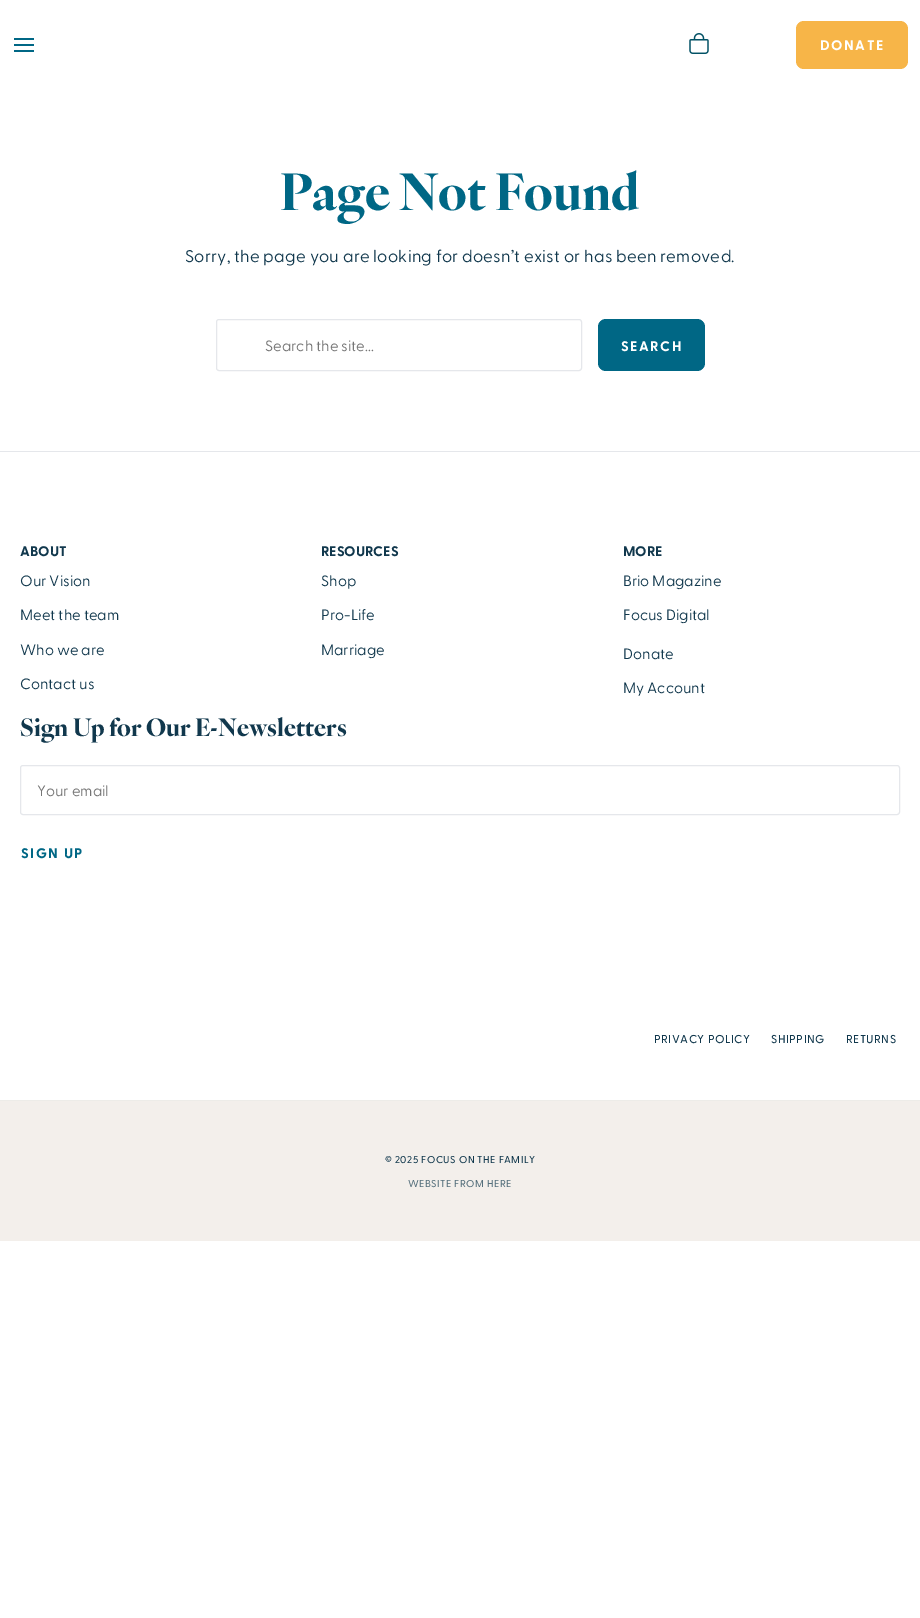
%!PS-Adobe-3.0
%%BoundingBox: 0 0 920 1618
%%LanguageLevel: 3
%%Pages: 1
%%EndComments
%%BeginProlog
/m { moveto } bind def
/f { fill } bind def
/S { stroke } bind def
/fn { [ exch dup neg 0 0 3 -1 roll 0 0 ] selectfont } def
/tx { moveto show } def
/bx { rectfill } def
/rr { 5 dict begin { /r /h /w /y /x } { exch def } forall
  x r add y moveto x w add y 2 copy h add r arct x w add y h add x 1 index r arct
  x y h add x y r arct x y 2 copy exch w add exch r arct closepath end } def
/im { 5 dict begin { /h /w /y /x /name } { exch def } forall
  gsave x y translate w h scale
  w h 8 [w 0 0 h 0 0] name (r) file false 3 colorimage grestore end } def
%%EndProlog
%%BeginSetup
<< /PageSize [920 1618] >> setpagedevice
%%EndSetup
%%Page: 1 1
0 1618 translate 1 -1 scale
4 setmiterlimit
1 setgray
0 0 920 1618 bx
0 0.404 0.522 setrgbcolor
14 44 20 2 bx
14 38 20 2 bx
14 50 20 2 bx
(image0.raw) 689 33 20 21 im
0.969 0.71 0.282 setrgbcolor
796 21 112 48 8 rr f
/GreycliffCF-Bold 14 fn
1 setgray
820 50 m 1.5 0 (DONATE) ashow
0.898 0.906 0.922 setrgbcolor
0 451 920 1 bx
/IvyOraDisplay-Bold 50 fn
0 0.404 0.522 setrgbcolor
(Page Not Found) 280 210 tx
/GreycliffCF-Regular 17 fn
0.067 0.22 0.302 setrgbcolor
185 262 m 0.2 0 (Sorry, the page you are looking for doesn’t exist or has been removed.) ashow
0.898 0.906 0.922 setrgbcolor
216.5 319.5 365 51 2.5 rr S
/GreycliffCF-Regular 15 fn
0.459 setgray
(Search the site...) 265 351 tx
0 0.404 0.522 setrgbcolor
598 319 107 52 8 rr f
/GreycliffCF-Bold 14 fn
1 setgray
621 351 m 1.5 0 (SEARCH) ashow
0.067 0.22 0.302 setrgbcolor
(ABOUT) 20 556 tx
/GreycliffCF-Regular 15 fn
(Our Vision) 20 586 tx
(Meet the team) 20 620 tx
(Who we are) 20 655 tx
(Contact us) 20 689 tx
/GreycliffCF-Bold 14 fn
(RESOURCES) 321 556 tx
/GreycliffCF-Regular 15 fn
(Shop) 321 586 tx
(Pro-Life) 321 620 tx
(Marriage) 321 655 tx
/GreycliffCF-Bold 14 fn
(MORE) 623 556 tx
/GreycliffCF-Regular 15 fn
(Brio Magazine) 623 586 tx
(Focus Digital) 623 620 tx
(Donate) 623 659 tx
(My Account) 623 693 tx
/IvyOraDisplay-Bold 24 fn
(Sign Up for Our E-Newsletters) 20 736 tx
0.898 0.906 0.922 setrgbcolor
20.5 765.5 879 49 2.5 rr S
/GreycliffCF-Regular 15 fn
0.459 setgray
(Your email) 37 796 tx
/GreycliffCF-Bold 14 fn
0 0.404 0.522 setrgbcolor
21 858 m 1.5 0 (SIGN UP) ashow
/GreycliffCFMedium-Medium 11.5 fn
0.067 0.22 0.302 setrgbcolor
654 1043 m 0.5 0 (PRIVACY POLICY) ashow
771 1043 m 0.5 0 (SHIPPING) ashow
846 1043 m 0.5 0 (RETURNS) ashow
0.953 0.937 0.922 setrgbcolor
0 1101 920 140 bx
0.929 0.925 0.91 setrgbcolor
0 1100 920 1 bx
/GreycliffCFMedium-Medium 10 fn
0.067 0.22 0.302 setrgbcolor
385 1163 m 0.5 0 (© 2025 FOCUS ON THE FAMILY) ashow
0.333 0.435 0.486 setrgbcolor
408 1187 m 0.5 0 (WEBSITE FROM HERE) ashow
showpage
%%EOF
